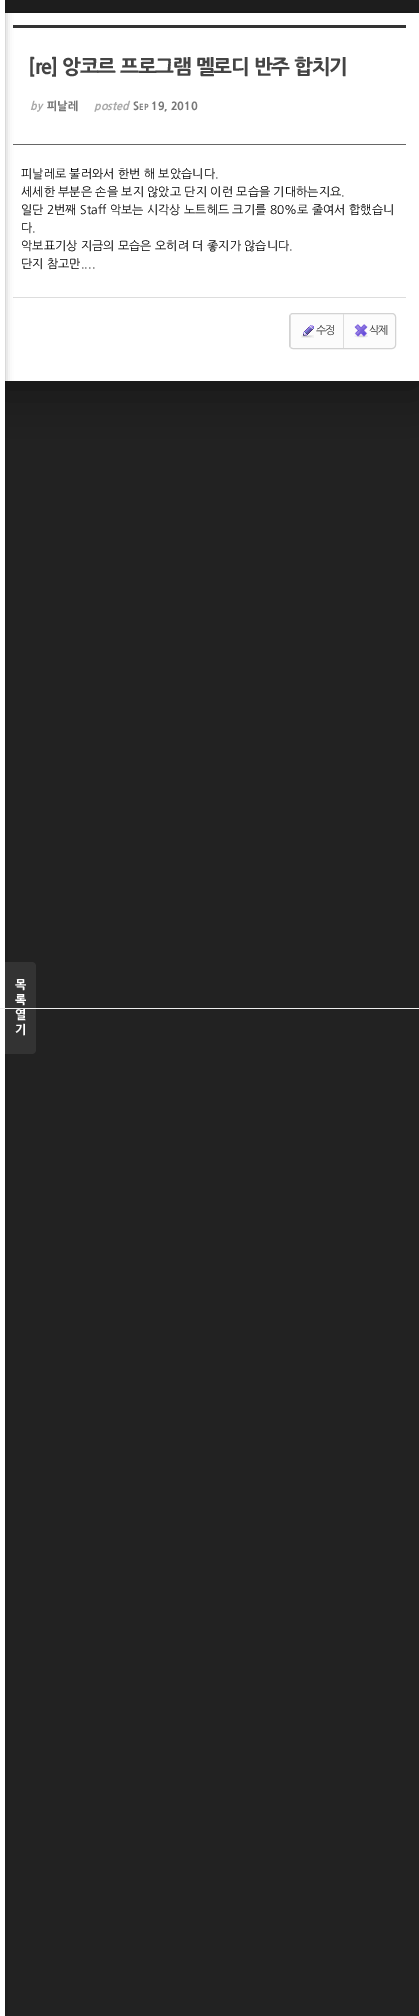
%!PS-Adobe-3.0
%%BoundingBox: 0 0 419 2016
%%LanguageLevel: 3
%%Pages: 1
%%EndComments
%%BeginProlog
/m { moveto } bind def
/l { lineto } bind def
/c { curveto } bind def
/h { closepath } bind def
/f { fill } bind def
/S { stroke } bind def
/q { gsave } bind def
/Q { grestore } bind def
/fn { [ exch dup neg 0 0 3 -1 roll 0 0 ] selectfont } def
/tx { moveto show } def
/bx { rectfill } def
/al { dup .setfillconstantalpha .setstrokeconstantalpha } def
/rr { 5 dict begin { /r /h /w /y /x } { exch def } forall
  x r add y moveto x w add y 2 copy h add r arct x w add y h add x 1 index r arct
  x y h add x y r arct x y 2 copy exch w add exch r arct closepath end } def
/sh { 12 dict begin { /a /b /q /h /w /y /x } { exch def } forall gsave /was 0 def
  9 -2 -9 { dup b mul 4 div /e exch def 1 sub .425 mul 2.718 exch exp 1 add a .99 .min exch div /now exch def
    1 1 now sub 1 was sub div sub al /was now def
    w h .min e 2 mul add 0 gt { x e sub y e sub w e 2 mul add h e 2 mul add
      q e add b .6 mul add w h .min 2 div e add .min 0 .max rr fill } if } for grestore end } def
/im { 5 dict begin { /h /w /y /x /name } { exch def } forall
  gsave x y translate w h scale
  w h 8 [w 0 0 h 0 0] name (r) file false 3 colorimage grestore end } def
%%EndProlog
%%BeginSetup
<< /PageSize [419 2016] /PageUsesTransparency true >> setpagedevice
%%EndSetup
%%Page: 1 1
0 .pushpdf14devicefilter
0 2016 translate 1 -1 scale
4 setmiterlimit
0.133 setgray
0 0 419 2016 bx
0 setgray
0 17 419 368 0 24 0.5 sh
1 setgray
5 13 414 368 bx
0.2 setgray
13 25 393 3 bx
0.4 setgray
13 144 393 1 bx
/NanumGothic-ExtraBold 20 fn
0.267 setgray
28 74 m -1 0 ([re] 앙코르 프로그램 멜로디 반주 합치기) ashow
/NanumGothic-ExtraBoldItalic 11 fn
0.667 setgray
(by) 30 110 tx
/NanumGothic-ExtraBold 11 fn
0.467 setgray
(피날레) 47 110 tx
/NanumGothic-ExtraBoldItalic 11 fn
0.667 setgray
(posted) 94 110 tx
/NanumGothic-ExtraBold 11 fn
0.467 setgray
(S) 133 110 tx
/NanumGothic-ExtraBold 8 fn
(EP) 139 110 tx
/NanumGothic-ExtraBold 11 fn
(19, 2010) 151 110 tx
/NanumGothic-Regular 12 fn
0 setgray
(피날레로 불러와서 한번 해 보았습니다.) 21 178 tx
(세세한 부분은 손을 보지 않았고 단지 이런 모습을 기대하는지요.) 21 196 tx
(일단 2번째 Staff 악보는 시각상 노트헤드 크기를 80%로 줄여서 합했습니) 21 214 tx
(다.) 21 232 tx
(악보표기상 지금의 모습은 오히려 더 좋지가 않습니다.) 21 250 tx
(단지 참고만....) 21 268 tx
0.867 setgray
13 297 393 1 bx
0.988 setgray
289.5 313.5 106 35 3.5 rr q f Q
0.827 setgray
S
0.867 setgray
290 314 1 34 bx
(image0.raw) 301 325 13 13 im
/NanumGothic-Regular 11 fn
0.2 setgray
316 334 m -1 0 (수정) ashow
0.867 setgray
343 314 1 34 bx
(image1.raw) 354 324 14 14 im
0.2 setgray
369 334 m -1 0 (삭제) ashow
0 setgray
-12 0 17 2016 0 4 0.3 sh
1 setgray
0 0 5 2016 bx
0.2 setgray
5 962 m 32 962 l 34 962 36 964 36 966 c 36 1050 l 36 1052 34 1054 32 1054 c 5 1054 l h f
/NanumGothic-ExtraBold 12 fn
1 setgray
(열) 15 1019 tx
0.933 setgray
0 1008 419 1 bx
1 setgray
(목) 15 989 tx
(록) 15 1004 tx
(기) 15 1034 tx
.poppdf14devicefilter showpage
%%EOF
